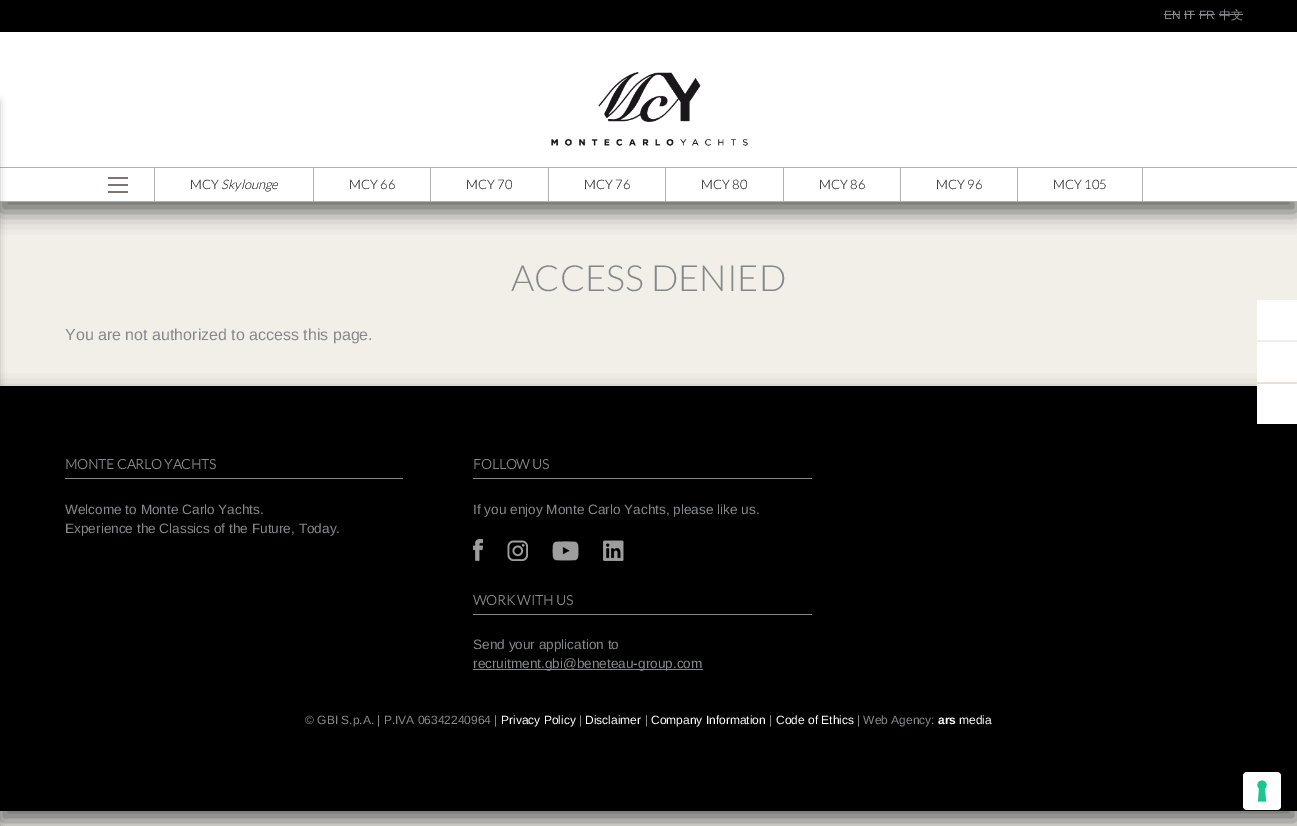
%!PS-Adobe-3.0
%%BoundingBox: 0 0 1297 826
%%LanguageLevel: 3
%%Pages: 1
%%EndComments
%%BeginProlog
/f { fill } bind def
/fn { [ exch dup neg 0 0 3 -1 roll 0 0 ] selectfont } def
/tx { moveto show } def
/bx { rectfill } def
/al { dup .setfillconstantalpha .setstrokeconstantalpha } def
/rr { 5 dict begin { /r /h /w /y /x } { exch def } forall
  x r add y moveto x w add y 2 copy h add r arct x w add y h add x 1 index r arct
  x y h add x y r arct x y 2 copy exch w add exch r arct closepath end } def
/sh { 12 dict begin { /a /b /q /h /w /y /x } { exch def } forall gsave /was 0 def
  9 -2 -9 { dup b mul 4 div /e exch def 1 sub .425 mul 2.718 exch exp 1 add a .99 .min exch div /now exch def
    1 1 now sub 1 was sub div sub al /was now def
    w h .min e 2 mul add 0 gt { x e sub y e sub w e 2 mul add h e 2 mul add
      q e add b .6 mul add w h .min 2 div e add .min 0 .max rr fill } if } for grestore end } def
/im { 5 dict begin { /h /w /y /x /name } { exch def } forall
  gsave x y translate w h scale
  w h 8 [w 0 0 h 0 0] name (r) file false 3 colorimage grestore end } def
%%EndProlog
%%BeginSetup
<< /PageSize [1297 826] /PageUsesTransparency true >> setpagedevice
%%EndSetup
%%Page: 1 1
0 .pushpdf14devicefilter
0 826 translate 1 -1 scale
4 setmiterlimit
0.949 0.937 0.91 setrgbcolor
0 0 1297 826 bx
0 setgray
0 10 1297 202 0 10 0.55 sh
1 setgray
0 32 1297 169 bx
0.698 setgray
0 167 1297 1 bx
0 201 1297 1 bx
0 setgray
0 396 1297 425 0 10 0.55 sh
0 386 1297 425 bx
-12 102 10 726 0 4 0.35 sh
0 0 1297 32 bx
/LiberationSans-Regular 12 fn
0.529 0.533 0.541 setrgbcolor
(EN) 1164 19 tx
1164 14 16 1 bx
(IT) 1184 19 tx
1184 14 11 1 bx
(FR) 1199 19 tx
1199 14 16 1 bx
/WenQuanYiZenHei-Medium 12 fn
(中文) 1219 19 tx
1219 14 24 1 bx
(image0.raw) 551 72 197 74 im
(image1.raw) 108 177 20 16 im
0.698 setgray
154 168 1 33 bx
/Lato-Light 13 fn
0 setgray
(MCY) 190 189 tx
/Lato-LightItalic 13 fn
(Skylounge) 221 189 tx
0.698 setgray
313 168 1 33 bx
/Lato-Light 13 fn
0 setgray
(MCY 66) 349 189 tx
0.698 setgray
430 168 1 33 bx
0 setgray
(MCY 70) 466 189 tx
0.698 setgray
548 168 1 33 bx
0 setgray
(MCY 76) 584 189 tx
0.698 setgray
665 168 1 33 bx
0 setgray
(MCY 80) 701 189 tx
0.698 setgray
783 168 1 33 bx
0 setgray
(MCY 86) 819 189 tx
0.698 setgray
900 168 1 33 bx
0 setgray
(MCY 96) 936 189 tx
0.698 setgray
1142 168 1 33 bx
1017 168 1 33 bx
0 setgray
(MCY 105) 1053 189 tx
1 setgray
1257 300 40 40 bx
1257 342 40 40 bx
1257 384 40 40 bx
/Lato-Light 36 fn
0.529 0.533 0.541 setrgbcolor
(ACCESS DENIED) 511 291 tx
/LiberationSans-Regular 16 fn
(You are not authorized to access this page.) 65 340 tx
65 478 338 1 bx
/Lato-Bold 13.6 fn
(MONTE CARLO YACHTS) 65 469 tx
/LiberationSans-Regular 13.6 fn
(Welcome to Monte Carlo Yachts.) 65 514 tx
(Experience the Classics of the Future, Today.) 65 533 tx
473 478 339 1 bx
/Lato-Bold 13.6 fn
(FOLLOW US) 473 469 tx
/LiberationSans-Regular 13.6 fn
(If you enjoy Monte Carlo Yachts, please like us.) 473 514 tx
(image2.raw) 473 539 10 22 im
(image3.raw) 507 540 21 21 im
(image4.raw) 552 541 27 20 im
(image5.raw) 603 540 21 21 im
473 614 339 1 bx
/Lato-Bold 13.6 fn
(WORK WITH US) 473 605 tx
/LiberationSans-Regular 13.6 fn
(Send your application to) 473 649 tx
473 669 230 1 bx
(recruitment.gbi@beneteau-group.com) 473 668 tx
/LiberationSans-Regular 12 fn
(© GBI S.p.A. | P.IVA 06342240964 |) 305 724 tx
1 setgray
(Privacy Policy) 501 724 tx
0.529 0.533 0.541 setrgbcolor
(|) 579 724 tx
1 setgray
(Disclaimer) 585 724 tx
0.529 0.533 0.541 setrgbcolor
(|) 645 724 tx
1 setgray
(Company Information) 651 724 tx
0.529 0.533 0.541 setrgbcolor
(|) 769 724 tx
1 setgray
(Code of Ethics) 776 724 tx
0.529 0.533 0.541 setrgbcolor
(| Web Agency:) 857 724 tx
/LiberationSans-Bold 12 fn
1 setgray
(ars) 938 724 tx
/LiberationSans-Regular 12 fn
(media) 959 724 tx
1243 772 38 38 4 rr f
(image6.raw) 1257 780 10 22 im
.poppdf14devicefilter showpage
%%EOF
